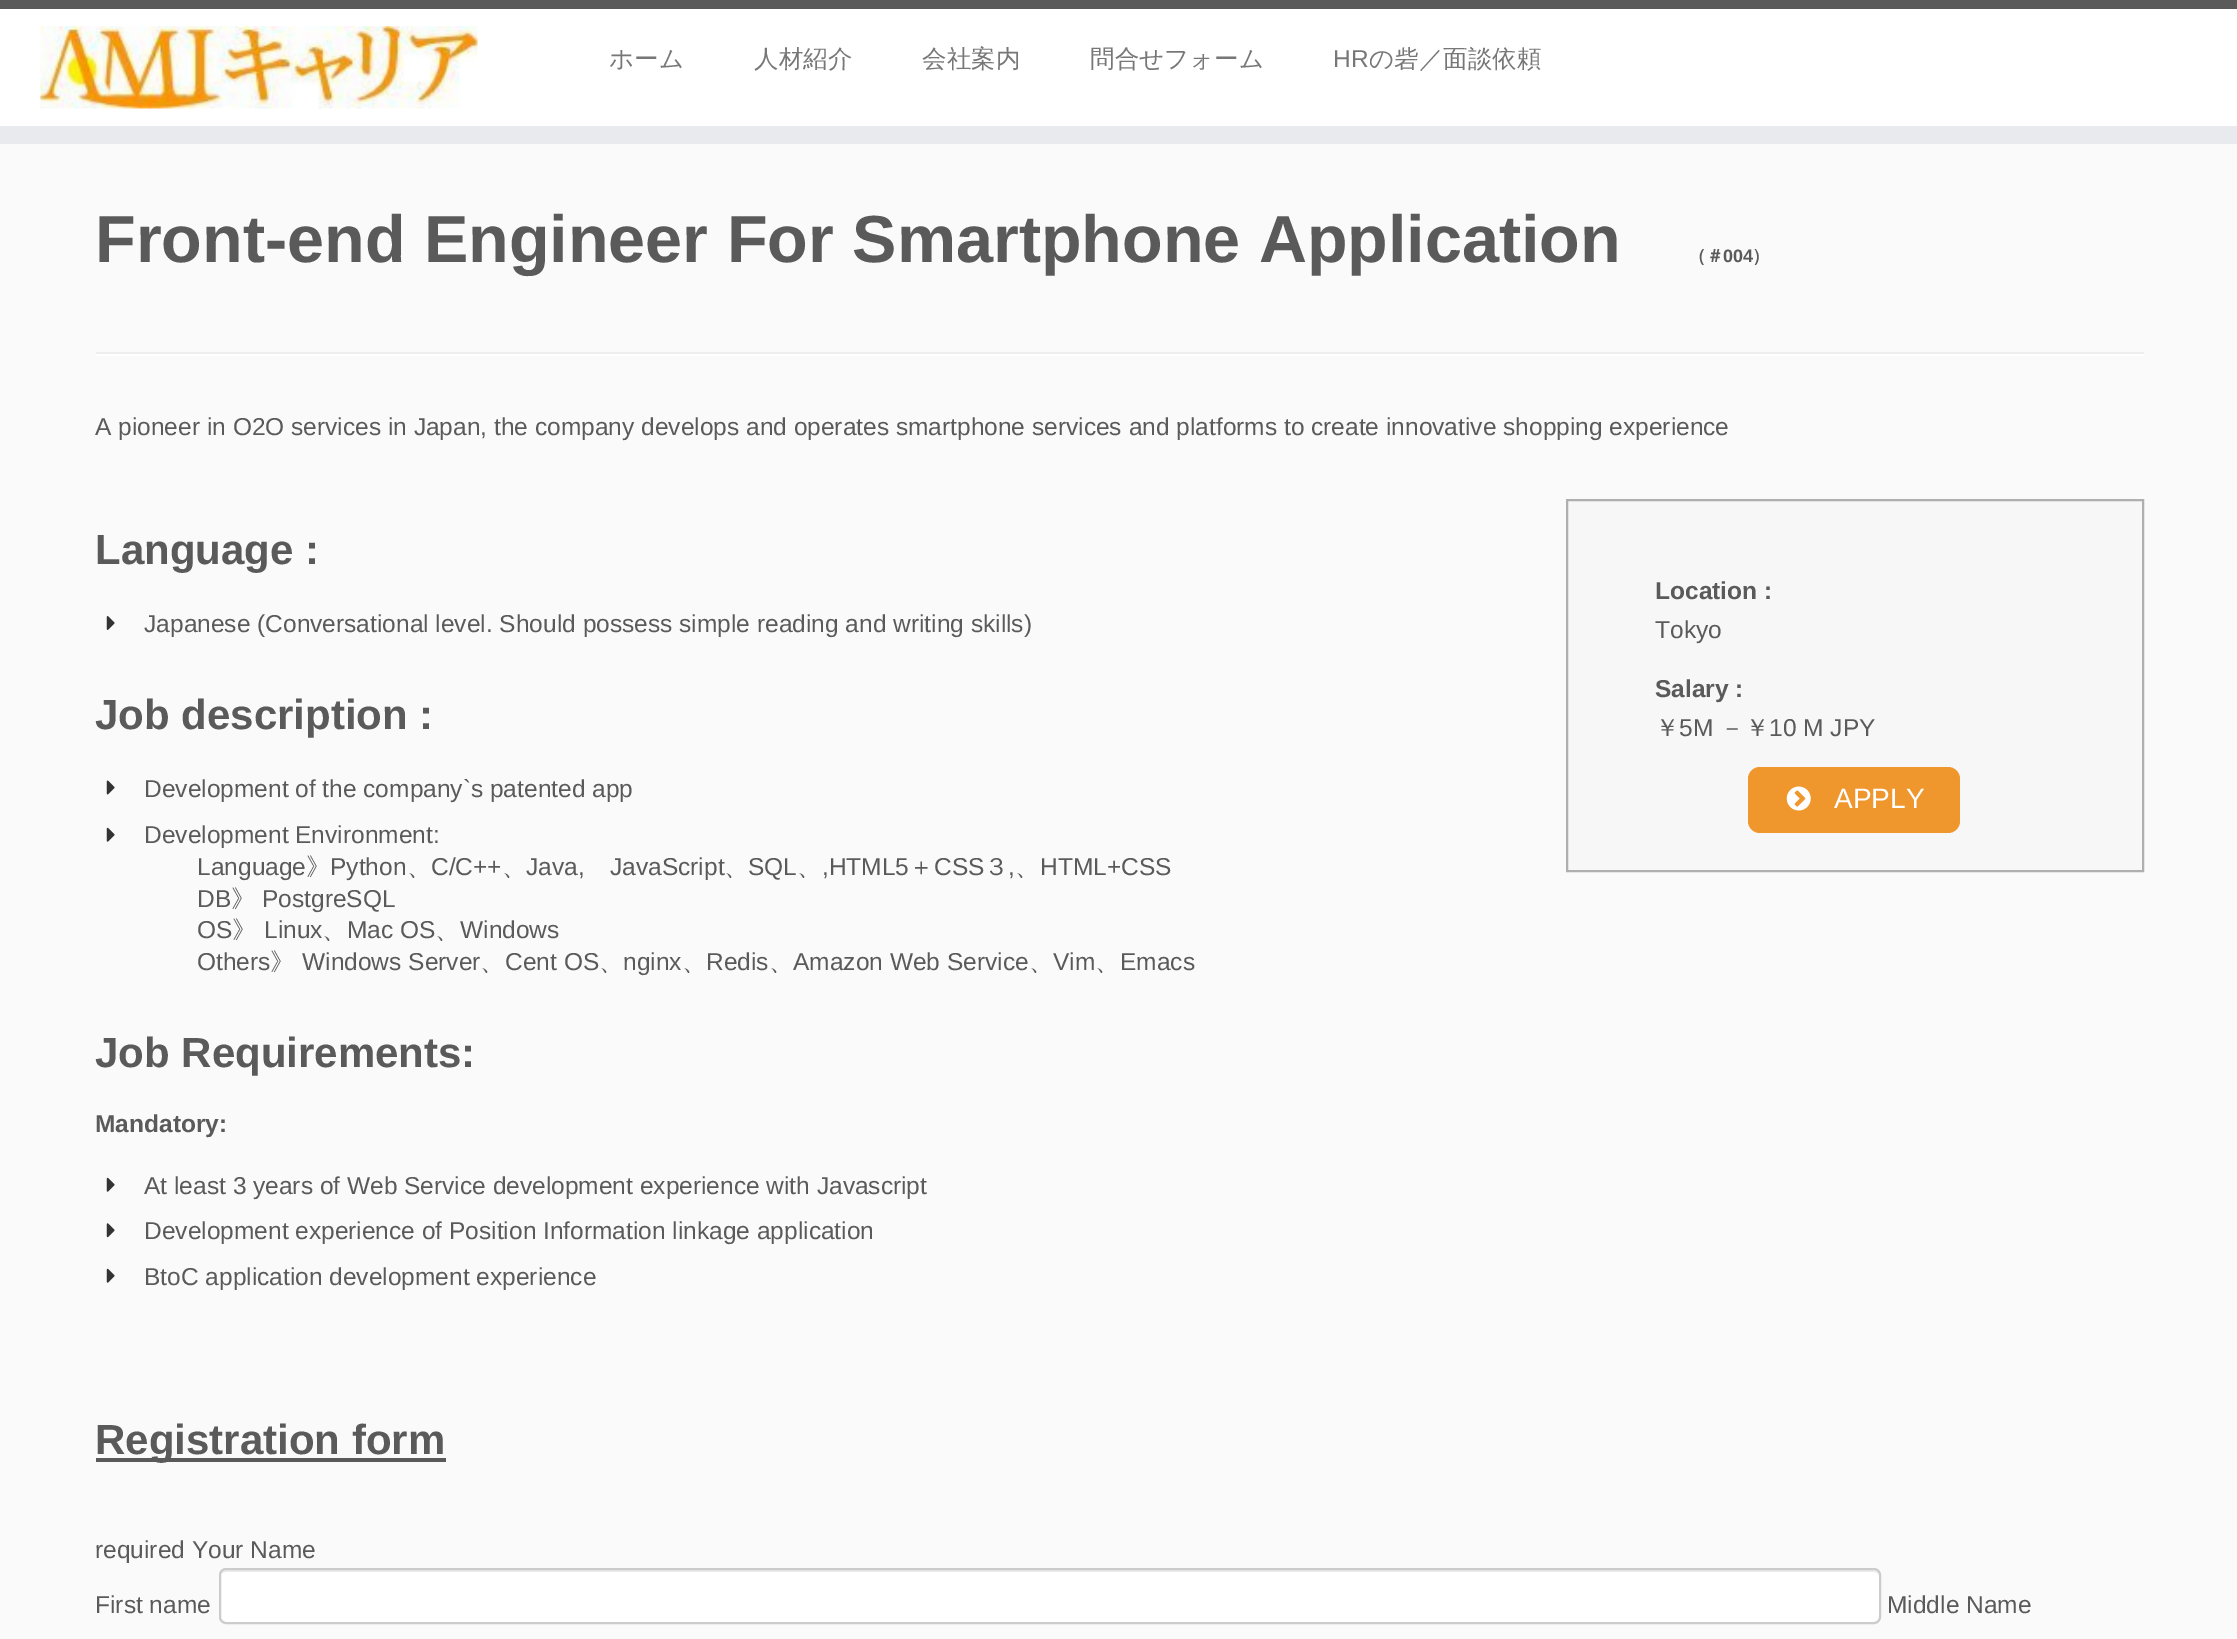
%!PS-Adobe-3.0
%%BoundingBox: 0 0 2237 1639
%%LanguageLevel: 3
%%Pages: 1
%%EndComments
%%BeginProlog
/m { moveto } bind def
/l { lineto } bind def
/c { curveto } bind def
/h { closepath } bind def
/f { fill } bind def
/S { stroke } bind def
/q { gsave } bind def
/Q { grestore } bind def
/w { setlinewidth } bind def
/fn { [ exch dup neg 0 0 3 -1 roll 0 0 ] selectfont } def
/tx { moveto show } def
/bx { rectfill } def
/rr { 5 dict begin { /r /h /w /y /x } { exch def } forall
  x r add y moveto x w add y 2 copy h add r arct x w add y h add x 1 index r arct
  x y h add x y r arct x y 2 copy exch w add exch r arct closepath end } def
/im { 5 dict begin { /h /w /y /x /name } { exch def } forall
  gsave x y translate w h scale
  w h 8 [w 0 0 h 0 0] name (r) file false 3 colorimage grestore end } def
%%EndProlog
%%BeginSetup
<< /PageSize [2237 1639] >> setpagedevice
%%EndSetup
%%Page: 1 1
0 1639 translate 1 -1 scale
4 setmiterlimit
0.98 setgray
0 0 2237 1639 bx
1 setgray
0 9 2237 117 bx
0.353 setgray
0 0 2237 9 bx
0.914 0.918 0.933 setrgbcolor
0 126 2237 18 bx
(image0.raw) 39 26 439 83 im
/WenQuanYiZenHei-Medium 24.5 fn
0.467 setgray
(ホーム) 609 67 tx
(人材紹介) 754 67 tx
(会社案内) 922 67 tx
(問合せフォーム) 1090 67 tx
/LiberationSans-Regular 24.5 fn
(HR) 1333 67 tx
/WenQuanYiZenHei-Medium 24.5 fn
(の砦／面談依頼) 1369 67 tx
/LiberationSans-Bold 66.5 fn
0.353 setgray
(Front-end Engineer For Smartphone Application) 95 262 tx
/WenQuanYiZenHei-Bold 18 fn
(（＃) 1688 262 tx
/LiberationSans-Bold 18 fn
(004) 1723 262 tx
/WenQuanYiZenHei-Bold 18 fn
(）) 1752 262 tx
0.933 setgray
96 352 2048 2 bx
1 setgray
96 354 2048 2 bx
/LiberationSans-Regular 24.5 fn
0.353 setgray
(A pioneer in O2O services in Japan, the company develops and operates smartphone services and platforms to create innovative shopping experience) 95 435 tx
/LiberationSans-Bold 42 fn
(Language :) 95 564 tx
(image1.raw) 106 616 9 14 im
/LiberationSans-Regular 24.5 fn
(Japanese \(Conversational level. Should possess simple reading and writing skills\)) 144 632 tx
/LiberationSans-Bold 42 fn
(Job description :) 95 729 tx
(image2.raw) 106 780 9 15 im
/LiberationSans-Regular 24.5 fn
(Development of the company`s patented app) 144 797 tx
(image3.raw) 106 827 9 15 im
(Development Environment:) 144 843 tx
(Language) 197 875 tx
/WenQuanYiZenHei-Medium 24.5 fn
(》) 306 875 tx
/LiberationSans-Regular 24.5 fn
(Python) 330 875 tx
/WenQuanYiZenHei-Medium 24.5 fn
(、) 407 875 tx
/LiberationSans-Regular 24.5 fn
(C/C++) 431 875 tx
/WenQuanYiZenHei-Medium 24.5 fn
(、) 502 875 tx
/LiberationSans-Regular 24.5 fn
(Java,) 526 875 tx
(JavaScript) 610 875 tx
/WenQuanYiZenHei-Medium 24.5 fn
(、) 724 875 tx
/LiberationSans-Regular 24.5 fn
(SQL) 748 875 tx
/WenQuanYiZenHei-Medium 24.5 fn
(、) 797 875 tx
/LiberationSans-Regular 24.5 fn
(,HTML5) 822 875 tx
/WenQuanYiZenHei-Medium 24.5 fn
(＋) 909 875 tx
/LiberationSans-Regular 24.5 fn
(CSS) 934 875 tx
/WenQuanYiZenHei-Medium 24.5 fn
(３) 984 875 tx
/LiberationSans-Regular 24.5 fn
(,) 1008 875 tx
/WenQuanYiZenHei-Medium 24.5 fn
(、) 1015 875 tx
/LiberationSans-Regular 24.5 fn
(HTML+CSS) 1040 875 tx
(DB) 197 907 tx
/WenQuanYiZenHei-Medium 24.5 fn
(》) 231 907 tx
/LiberationSans-Regular 24.5 fn
(PostgreSQL) 262 907 tx
(OS) 197 938 tx
/WenQuanYiZenHei-Medium 24.5 fn
(》) 232 938 tx
/LiberationSans-Regular 24.5 fn
(Linux) 264 938 tx
/WenQuanYiZenHei-Medium 24.5 fn
(、) 322 938 tx
/LiberationSans-Regular 24.5 fn
(Mac OS) 347 938 tx
/WenQuanYiZenHei-Medium 24.5 fn
(、) 435 938 tx
/LiberationSans-Regular 24.5 fn
(Windows) 460 938 tx
(Others) 197 970 tx
/WenQuanYiZenHei-Medium 24.5 fn
(》) 270 970 tx
/LiberationSans-Regular 24.5 fn
(Windows Server) 302 970 tx
/WenQuanYiZenHei-Medium 24.5 fn
(、) 480 970 tx
/LiberationSans-Regular 24.5 fn
(Cent OS) 505 970 tx
/WenQuanYiZenHei-Medium 24.5 fn
(、) 599 970 tx
/LiberationSans-Regular 24.5 fn
(nginx) 623 970 tx
/WenQuanYiZenHei-Medium 24.5 fn
(、) 682 970 tx
/LiberationSans-Regular 24.5 fn
(Redis) 706 970 tx
/WenQuanYiZenHei-Medium 24.5 fn
(、) 769 970 tx
/LiberationSans-Regular 24.5 fn
(Amazon Web Service) 793 970 tx
/WenQuanYiZenHei-Medium 24.5 fn
(、) 1029 970 tx
/LiberationSans-Regular 24.5 fn
(Vim) 1053 970 tx
/WenQuanYiZenHei-Medium 24.5 fn
(、) 1095 970 tx
/LiberationSans-Regular 24.5 fn
(Emacs) 1120 970 tx
/LiberationSans-Bold 42 fn
(Job Requirements:) 95 1067 tx
/LiberationSans-Bold 24.5 fn
(Mandatory:) 95 1132 tx
(image3.raw) 106 1177 9 15 im
/LiberationSans-Regular 24.5 fn
(At least 3 years of Web Service development experience with Javascript) 144 1194 tx
(image4.raw) 106 1223 9 15 im
(Development experience of Position Information linkage application) 144 1239 tx
(image3.raw) 106 1268 9 15 im
(BtoC application development experience) 144 1285 tx
0.969 setgray
1567 500 m 2143 500 l 2143 871 l 1567 871 l h q f Q
0.686 setgray
2 w
S
/LiberationSans-Bold 24.5 fn
0.353 setgray
(Location :) 1655 599 tx
/LiberationSans-Regular 24.5 fn
(Tokyo) 1655 638 tx
/LiberationSans-Bold 24.5 fn
(Salary :) 1655 697 tx
/WenQuanYiZenHei-Medium 24.5 fn
(￥) 1655 736 tx
/LiberationSans-Regular 24.5 fn
(5M) 1679 736 tx
/WenQuanYiZenHei-Medium 24.5 fn
(－￥) 1720 736 tx
/LiberationSans-Regular 24.5 fn
(10 M JPY) 1769 736 tx
0.937 0.588 0.176 setrgbcolor
1748 767 212 66 12 rr f
(image5.raw) 1786 786 25 25 im
/LiberationSans-Regular 28 fn
1 setgray
(APPLY) 1834 808 tx
0.353 setgray
96 1458 350 4 bx
/LiberationSans-Bold 42 fn
(Registration form) 95 1454 tx
/LiberationSans-Regular 24.5 fn
(required Your Name) 95 1558 tx
(First name) 95 1613 tx
1 setgray
219 1568 1662 56 7 rr f
0.925 setgray
226 1572 m 1874 1572 l 1877 1572 1880 1574 1880 1577 c 1880 1575 l 1880 1572 1878 1570 1875 1570 c 226 1570 l 224 1570 221 1572 221 1574 c 222 1573 224 1572 226 1572 c h f
0.8 setgray
220 1569 1660 54 6 rr S
0.353 setgray
(Middle Name) 1887 1613 tx
showpage
%%EOF
